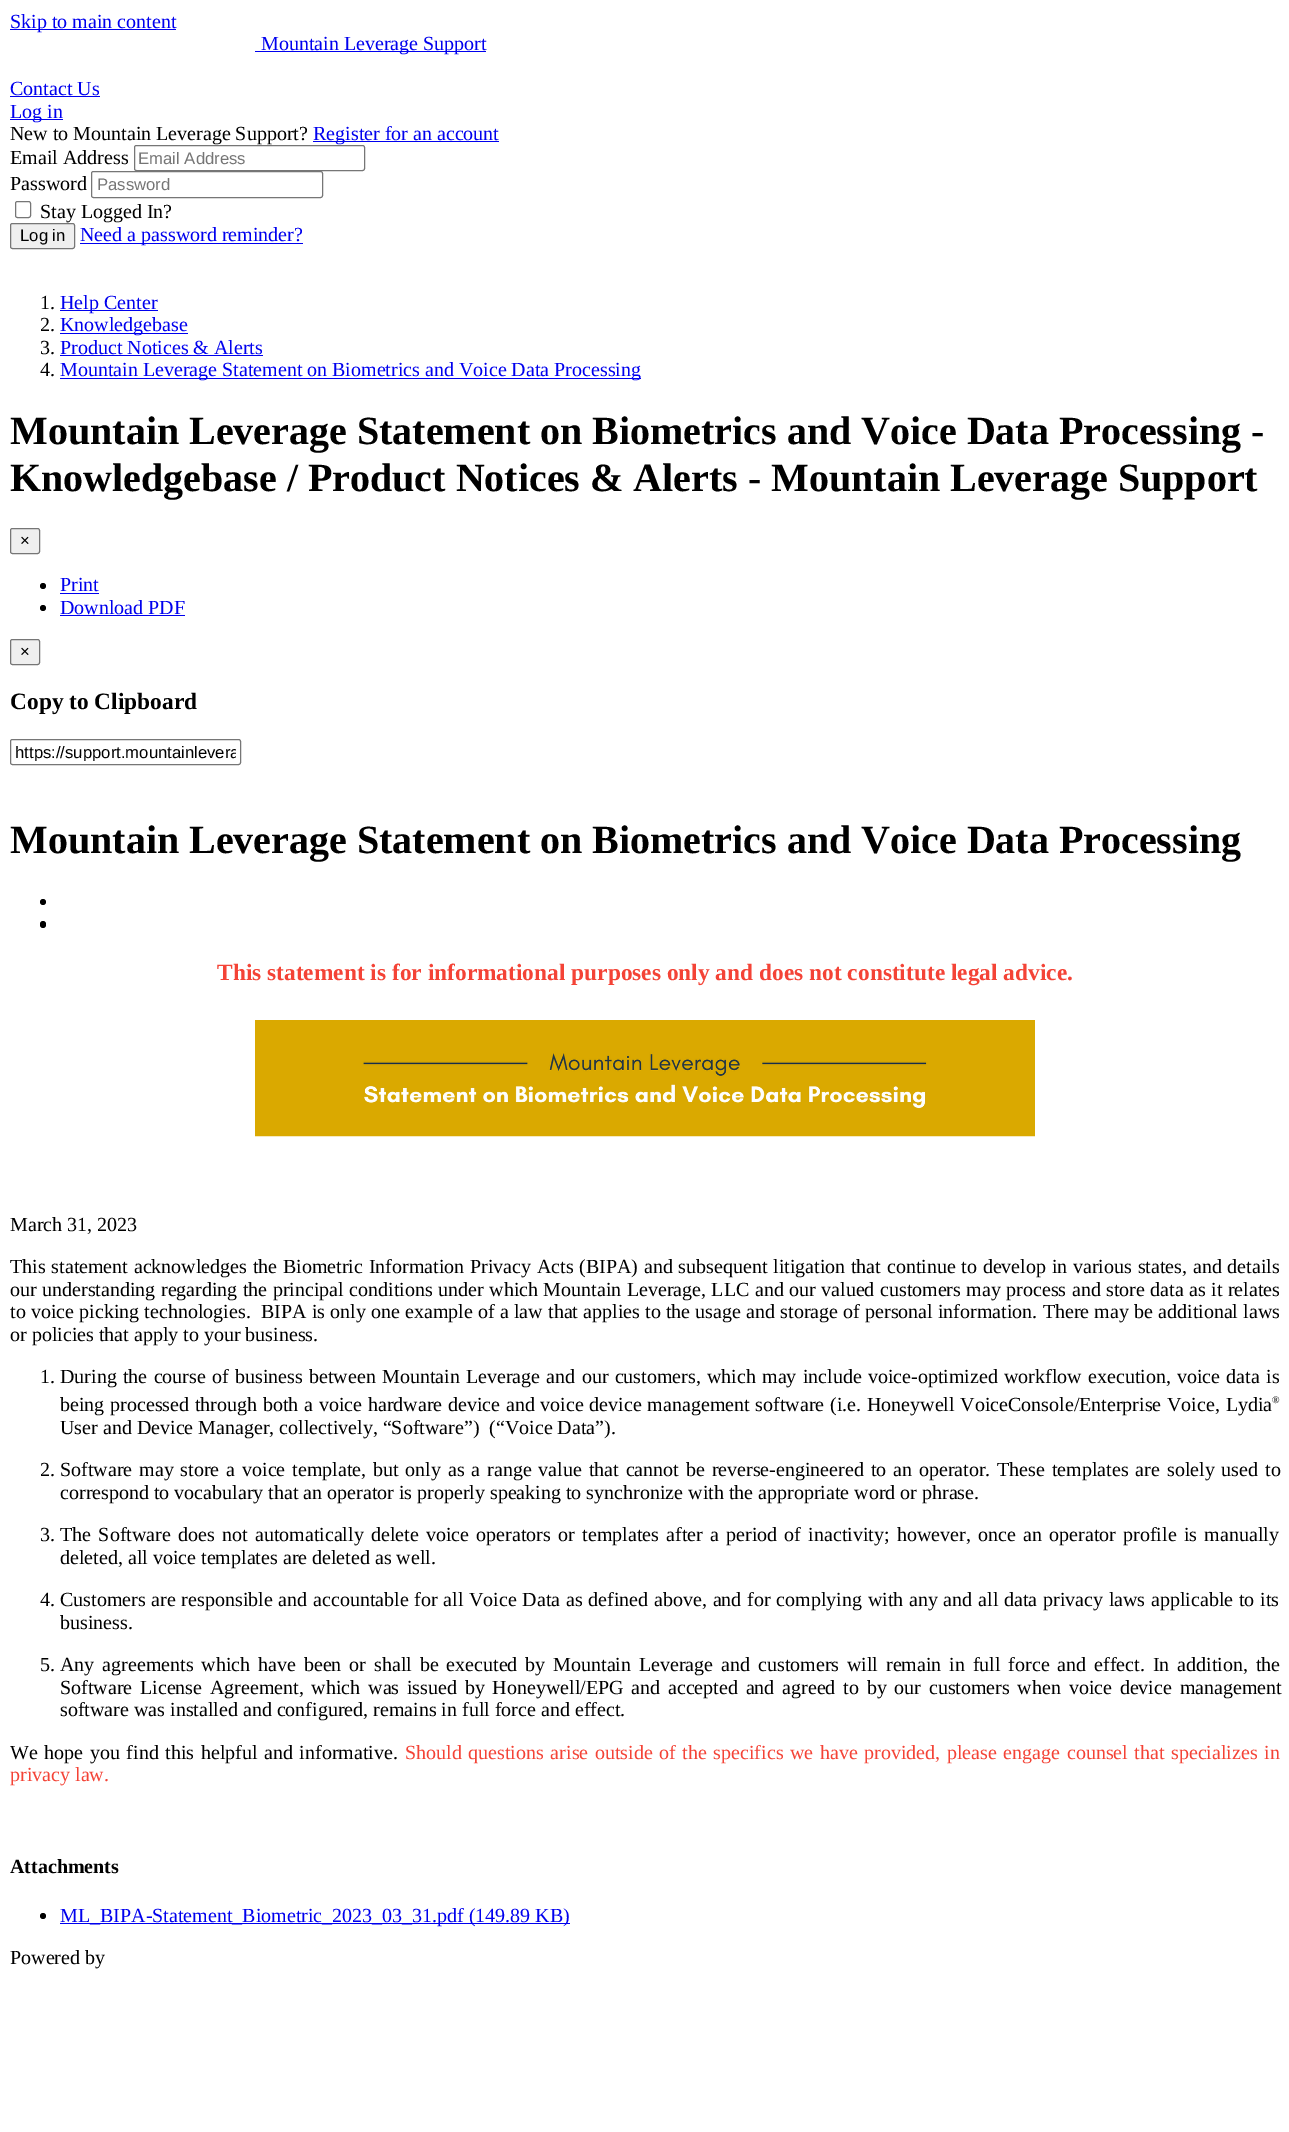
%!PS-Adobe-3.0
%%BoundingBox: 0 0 1289 2132
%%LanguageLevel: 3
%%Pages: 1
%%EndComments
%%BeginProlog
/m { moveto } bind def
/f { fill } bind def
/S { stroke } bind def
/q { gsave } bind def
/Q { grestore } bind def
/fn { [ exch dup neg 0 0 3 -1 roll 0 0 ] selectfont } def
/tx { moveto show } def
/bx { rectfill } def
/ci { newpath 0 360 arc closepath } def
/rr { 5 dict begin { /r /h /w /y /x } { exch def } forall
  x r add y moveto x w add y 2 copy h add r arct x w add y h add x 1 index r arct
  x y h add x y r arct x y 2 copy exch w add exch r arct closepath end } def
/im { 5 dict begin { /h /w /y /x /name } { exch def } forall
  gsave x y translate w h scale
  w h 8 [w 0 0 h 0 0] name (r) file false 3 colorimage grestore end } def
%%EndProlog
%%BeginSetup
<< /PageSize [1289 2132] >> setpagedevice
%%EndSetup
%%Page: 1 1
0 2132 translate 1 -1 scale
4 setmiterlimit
1 setgray
0 0 1289 2132 bx
0 0 0.933 setrgbcolor
10 29 166 1 bx
/LiberationSerif-Regular 20 fn
(Skip to main content) 10 28 tx
255 51 231 1 bx
(Mountain Leverage Support) 261 50 tx
(Contact Us) 10 95 tx
10 96 90 1 bx
10 119 53 1 bx
(Log in) 10 118 tx
0 setgray
(New to Mountain Leverage Support?) 10 140 tx
0 0 0.933 setrgbcolor
313 141 186 1 bx
(Register for an account) 313 140 tx
0 setgray
(Email Address) 10 164 tx
0.463 setgray
134.5 145.5 230 25 2 rr S
/LiberationSans-Regular 16.7 fn
0.459 setgray
(Email Address) 138 164 tx
/LiberationSerif-Regular 20 fn
0 setgray
(Password) 10 190 tx
0.463 setgray
91.5 171.5 231 26 2 rr S
/LiberationSans-Regular 16.7 fn
0.459 setgray
(Password) 97 190 tx
0.463 setgray
15.5 201.5 15 16 2 rr S
/LiberationSerif-Regular 20 fn
0 setgray
(Stay Logged In?) 40 218 tx
0.937 setgray
10.5 223.5 64 25 2 rr q f Q
0.463 setgray
S
/LiberationSans-Regular 16.7 fn
0 setgray
(Log in) 20 241 tx
0 0 0.933 setrgbcolor
80 243 223 1 bx
/LiberationSerif-Regular 20 fn
(Need a password reminder?) 80 241 tx
0 setgray
(1.) 40 309 tx
0 0 0.933 setrgbcolor
60 310 98 1 bx
(Help Center) 60 309 tx
0 setgray
(2.) 40 331 tx
0 0 0.933 setrgbcolor
60 333 128 1 bx
(Knowledgebase) 60 331 tx
0 setgray
(3.) 40 354 tx
0 0 0.933 setrgbcolor
(Product Notices & Alerts) 60 354 tx
60 355 203 1 bx
0 setgray
(4.) 40 376 tx
0 0 0.933 setrgbcolor
60 378 581 1 bx
(Mountain Leverage Statement on Biometrics and Voice Data Processing) 60 376 tx
/LiberationSerif-Bold 40 fn
0 setgray
(Mountain Leverage Statement on Biometrics and Voice Data Processing -) 10 444 tx
(Knowledgebase / Product Notices & Alerts - Mountain Leverage Support) 10 491 tx
0.937 setgray
10.5 528.5 29 25 2 rr q f Q
0.463 setgray
S
/LiberationSans-Regular 16.7 fn
0 setgray
(×) 20 546 tx
43 586 3 ci f
/LiberationSerif-Regular 20 fn
0 0 0.933 setrgbcolor
(Print) 60 591 tx
60 593 39 1 bx
0 setgray
43 608 3 ci f
0 0 0.933 setrgbcolor
(Download PDF) 60 614 tx
60 615 125 1 bx
0.937 setgray
10.5 639.5 29 25 2 rr q f Q
0.463 setgray
S
/LiberationSans-Regular 16.7 fn
0 setgray
(×) 20 657 tx
/LiberationSerif-Bold 23.4 fn
(Copy to Clipboard) 10 709 tx
0.463 setgray
10.5 739.5 230 25 2 rr S
q
15 743 221 18 rectclip
/LiberationSans-Regular 16.7 fn
0 setgray
(https://support.mountainlevera) 15 758 tx
Q
/LiberationSerif-Bold 40 fn
0 setgray
(Mountain Leverage Statement on Biometrics and Voice Data Processing) 10 853 tx
43 902 3 ci f
40 921 6 7 3 rr f
/LiberationSerif-Bold 23.4 fn
0.957 0.263 0.212 setrgbcolor
(This statement is for informational purposes only and does not constitute legal advice.) 217 980 tx
(image0.raw) 255 1020 780 117 im
/LiberationSerif-Regular 20 fn
0 setgray
(March 31, 2023) 10 1231 tx
10 1273 m 0.75 0 32 (This statement acknowledges the Biometric Information Privacy Acts \(BIPA\) and subsequent litigation that continue to develop in various states, and details) widthshow
10 1296 m 0.45 0 32 (our understanding regarding the principal conditions under which Mountain Leverage, LLC and our valued customers may process and store data as it relates) widthshow
10 1318 m 0.2 0 32 (to voice picking technologies.  BIPA is only one example of a law that applies to the usage and storage of personal information. There may be additional laws) widthshow
(or policies that apply to your business.) 10 1341 tx
(1.) 40 1383 tx
60 1383 m 1.25 0 32 (During the course of business between Mountain Leverage and our customers, which may include voice-optimized workflow execution, voice data is) widthshow
60 1411 m 0.75 0 32 (being processed through both a voice hardware device and voice device management software \(i.e. Honeywell VoiceConsole/Enterprise Voice, Lydia) widthshow
/LiberationSerif-Regular 10 fn
(®) 1272 1403 tx
/LiberationSerif-Regular 20 fn
(User and Device Manager, collectively, “Software”\)  \(“Voice Data”\).) 60 1434 tx
(2.) 40 1476 tx
60 1476 m 1.9 0 32 (Software may store a voice template, but only as a range value that cannot be reverse-engineered to an operator. These templates are solely used to) widthshow
(correspond to vocabulary that an operator is properly speaking to synchronize with the appropriate word or phrase.) 60 1499 tx
(3.) 40 1541 tx
60 1541 m 2.3 0 32 (The Software does not automatically delete voice operators or templates after a period of inactivity; however, once an operator profile is manually) widthshow
(deleted, all voice templates are deleted as well.) 60 1564 tx
(4.) 40 1606 tx
60 1606 m 0.75 0 32 (Customers are responsible and accountable for all Voice Data as defined above, and for complying with any and all data privacy laws applicable to its) widthshow
(business.) 60 1629 tx
(5.) 40 1671 tx
60 1671 m 2.9 0 32 (Any agreements which have been or shall be executed by Mountain Leverage and customers will remain in full force and effect. In addition, the) widthshow
60 1694 m 2.75 0 32 (Software License Agreement, which was issued by Honeywell/EPG and accepted and agreed to by our customers when voice device management) widthshow
(software was installed and configured, remains in full force and effect.) 60 1716 tx
10 1759 m 1.6 0 32 (We hope you find this helpful and informative.) widthshow
0.957 0.263 0.212 setrgbcolor
405 1759 m 1.6 0 32 (Should questions arise outside of the specifics we have provided, please engage counsel that specializes in) widthshow
(privacy law.) 10 1781 tx
/LiberationSerif-Bold 20 fn
0 setgray
(Attachments) 10 1873 tx
43 1916 3 ci f
0 0 0.933 setrgbcolor
60 1923 510 1 bx
/LiberationSerif-Regular 20 fn
(ML_BIPA-Statement_Biometric_2023_03_31.pdf \(149.89 KB\)) 60 1922 tx
0 setgray
(Powered by) 10 1964 tx
showpage
%%EOF
